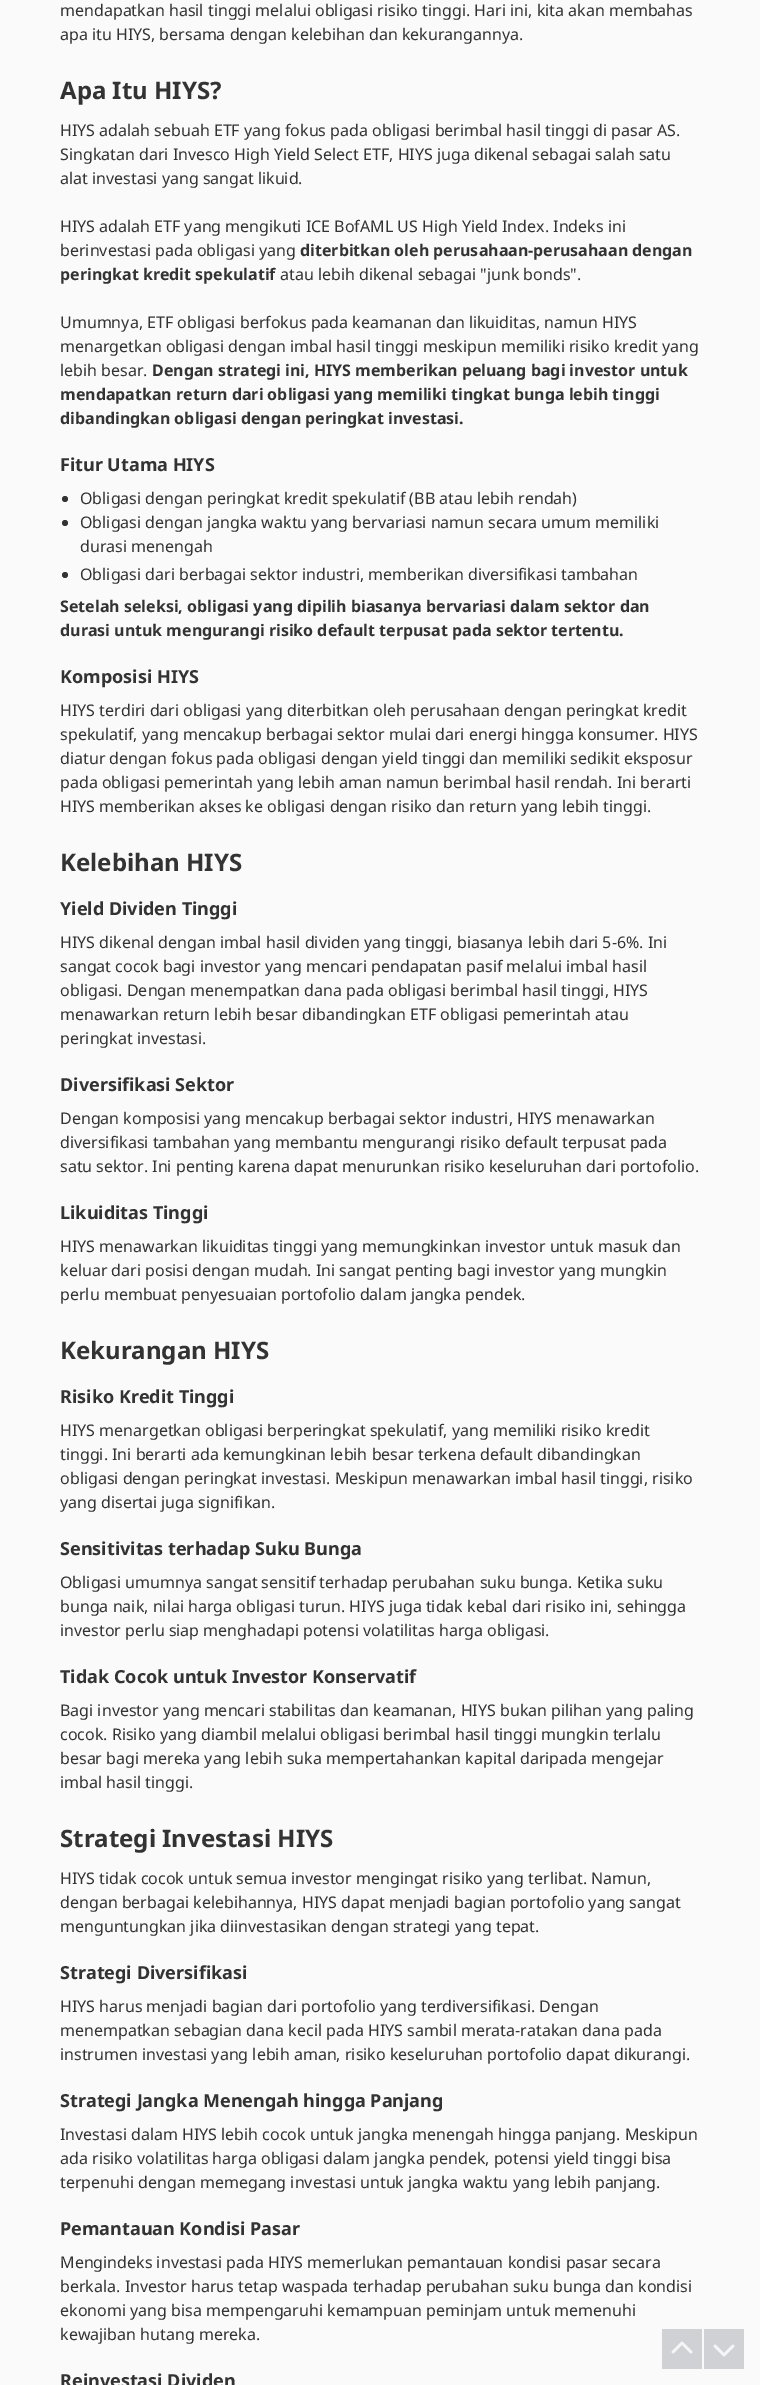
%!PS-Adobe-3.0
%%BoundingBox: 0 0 760 2385
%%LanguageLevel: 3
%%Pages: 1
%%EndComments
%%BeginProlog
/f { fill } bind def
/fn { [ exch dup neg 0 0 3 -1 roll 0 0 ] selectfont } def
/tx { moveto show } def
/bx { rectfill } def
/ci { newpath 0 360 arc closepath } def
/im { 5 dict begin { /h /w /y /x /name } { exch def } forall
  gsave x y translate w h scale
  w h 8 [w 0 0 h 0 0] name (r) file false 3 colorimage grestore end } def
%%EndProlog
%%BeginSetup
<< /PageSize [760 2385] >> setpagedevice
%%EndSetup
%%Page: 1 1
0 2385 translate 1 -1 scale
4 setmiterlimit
0.98 setgray
0 0 760 2385 bx
/NotoSans-Regular 16 fn
0.2 setgray
(mendapatkan hasil tinggi melalui obligasi risiko tinggi. Hari ini, kita akan membahas) 60 16 tx
(apa itu HIYS, bersama dengan kelebihan dan kekurangannya.) 60 40 tx
/NotoSans-Bold 24 fn
(Apa Itu HIYS?) 60 99 tx
/NotoSans-Regular 16 fn
(HIYS adalah sebuah ETF yang fokus pada obligasi berimbal hasil tinggi di pasar AS.) 60 136 tx
(Singkatan dari Invesco High Yield Select ETF, HIYS juga dikenal sebagai salah satu) 60 160 tx
(alat investasi yang sangat likuid.) 60 184 tx
(HIYS adalah ETF yang mengikuti ICE BofAML US High Yield Index. Indeks ini) 60 232 tx
(berinvestasi pada obligasi yang) 60 256 tx
/NotoSans-Bold 16 fn
(diterbitkan oleh perusahaan-perusahaan dengan) 300 256 tx
(peringkat kredit spekulatif) 60 280 tx
/NotoSans-Regular 16 fn
(atau lebih dikenal sebagai "junk bonds".) 280 280 tx
(Umumnya, ETF obligasi berfokus pada keamanan dan likuiditas, namun HIYS) 60 328 tx
(menargetkan obligasi dengan imbal hasil tinggi meskipun memiliki risiko kredit yang) 60 352 tx
(lebih besar.) 60 376 tx
/NotoSans-Bold 16 fn
(Dengan strategi ini, HIYS memberikan peluang bagi investor untuk) 152 376 tx
(mendapatkan return dari obligasi yang memiliki tingkat bunga lebih tinggi) 60 400 tx
(dibandingkan obligasi dengan peringkat investasi.) 60 424 tx
/NotoSans-Bold 18 fn
(Fitur Utama HIYS) 60 471 tx
65 499 3 ci f
/NotoSans-Regular 16 fn
(Obligasi dengan peringkat kredit spekulatif \(BB atau lebih rendah\)) 80 504 tx
65 523 3 ci f
(Obligasi dengan jangka waktu yang bervariasi namun secara umum memiliki) 80 528 tx
(durasi menengah) 80 552 tx
65 575 3 ci f
(Obligasi dari berbagai sektor industri, memberikan diversifikasi tambahan) 80 580 tx
/NotoSans-Bold 16 fn
(Setelah seleksi, obligasi yang dipilih biasanya bervariasi dalam sektor dan) 60 612 tx
(durasi untuk mengurangi risiko default terpusat pada sektor tertentu.) 60 636 tx
/NotoSans-Bold 18 fn
(Komposisi HIYS) 60 683 tx
/NotoSans-Regular 16 fn
(HIYS terdiri dari obligasi yang diterbitkan oleh perusahaan dengan peringkat kredit) 60 716 tx
(spekulatif, yang mencakup berbagai sektor mulai dari energi hingga konsumer. HIYS) 60 740 tx
(diatur dengan fokus pada obligasi dengan yield tinggi dan memiliki sedikit eksposur) 60 764 tx
(pada obligasi pemerintah yang lebih aman namun berimbal hasil rendah. Ini berarti) 60 788 tx
(HIYS memberikan akses ke obligasi dengan risiko dan return yang lebih tinggi.) 60 812 tx
/NotoSans-Bold 24 fn
(Kelebihan HIYS) 60 871 tx
/NotoSans-Bold 18 fn
(Yield Dividen Tinggi) 60 915 tx
/NotoSans-Regular 16 fn
(HIYS dikenal dengan imbal hasil dividen yang tinggi, biasanya lebih dari 5-6%. Ini) 60 948 tx
(sangat cocok bagi investor yang mencari pendapatan pasif melalui imbal hasil) 60 972 tx
(obligasi. Dengan menempatkan dana pada obligasi berimbal hasil tinggi, HIYS) 60 996 tx
(menawarkan return lebih besar dibandingkan ETF obligasi pemerintah atau) 60 1020 tx
(peringkat investasi.) 60 1044 tx
/NotoSans-Bold 18 fn
(Diversifikasi Sektor) 60 1091 tx
/NotoSans-Regular 16 fn
(Dengan komposisi yang mencakup berbagai sektor industri, HIYS menawarkan) 60 1124 tx
(diversifikasi tambahan yang membantu mengurangi risiko default terpusat pada) 60 1148 tx
(satu sektor. Ini penting karena dapat menurunkan risiko keseluruhan dari portofolio.) 60 1172 tx
/NotoSans-Bold 18 fn
(Likuiditas Tinggi) 60 1219 tx
/NotoSans-Regular 16 fn
(HIYS menawarkan likuiditas tinggi yang memungkinkan investor untuk masuk dan) 60 1252 tx
(keluar dari posisi dengan mudah. Ini sangat penting bagi investor yang mungkin) 60 1276 tx
(perlu membuat penyesuaian portofolio dalam jangka pendek.) 60 1300 tx
/NotoSans-Bold 24 fn
(Kekurangan HIYS) 60 1359 tx
/NotoSans-Bold 18 fn
(Risiko Kredit Tinggi) 60 1403 tx
/NotoSans-Regular 16 fn
(HIYS menargetkan obligasi berperingkat spekulatif, yang memiliki risiko kredit) 60 1436 tx
(tinggi. Ini berarti ada kemungkinan lebih besar terkena default dibandingkan) 60 1460 tx
(obligasi dengan peringkat investasi. Meskipun menawarkan imbal hasil tinggi, risiko) 60 1484 tx
(yang disertai juga signifikan.) 60 1508 tx
/NotoSans-Bold 18 fn
(Sensitivitas terhadap Suku Bunga) 60 1555 tx
/NotoSans-Regular 16 fn
(Obligasi umumnya sangat sensitif terhadap perubahan suku bunga. Ketika suku) 60 1588 tx
(bunga naik, nilai harga obligasi turun. HIYS juga tidak kebal dari risiko ini, sehingga) 60 1612 tx
(investor perlu siap menghadapi potensi volatilitas harga obligasi.) 60 1636 tx
/NotoSans-Bold 18 fn
(Tidak Cocok untuk Investor Konservatif) 60 1683 tx
/NotoSans-Regular 16 fn
(Bagi investor yang mencari stabilitas dan keamanan, HIYS bukan pilihan yang paling) 60 1716 tx
(cocok. Risiko yang diambil melalui obligasi berimbal hasil tinggi mungkin terlalu) 60 1740 tx
(besar bagi mereka yang lebih suka mempertahankan kapital daripada mengejar) 60 1764 tx
(imbal hasil tinggi.) 60 1788 tx
/NotoSans-Bold 24 fn
(Strategi Investasi HIYS) 60 1847 tx
/NotoSans-Regular 16 fn
(HIYS tidak cocok untuk semua investor mengingat risiko yang terlibat. Namun,) 60 1884 tx
(dengan berbagai kelebihannya, HIYS dapat menjadi bagian portofolio yang sangat) 60 1908 tx
(menguntungkan jika diinvestasikan dengan strategi yang tepat.) 60 1932 tx
/NotoSans-Bold 18 fn
(Strategi Diversifikasi) 60 1979 tx
/NotoSans-Regular 16 fn
(HIYS harus menjadi bagian dari portofolio yang terdiversifikasi. Dengan) 60 2012 tx
(menempatkan sebagian dana kecil pada HIYS sambil merata-ratakan dana pada) 60 2036 tx
(instrumen investasi yang lebih aman, risiko keseluruhan portofolio dapat dikurangi.) 60 2060 tx
/NotoSans-Bold 18 fn
(Strategi Jangka Menengah hingga Panjang) 60 2107 tx
/NotoSans-Regular 16 fn
(Investasi dalam HIYS lebih cocok untuk jangka menengah hingga panjang. Meskipun) 60 2140 tx
(ada risiko volatilitas harga obligasi dalam jangka pendek, potensi yield tinggi bisa) 60 2164 tx
(terpenuhi dengan memegang investasi untuk jangka waktu yang lebih panjang.) 60 2188 tx
/NotoSans-Bold 18 fn
(Pemantauan Kondisi Pasar) 60 2235 tx
/NotoSans-Regular 16 fn
(Mengindeks investasi pada HIYS memerlukan pemantauan kondisi pasar secara) 60 2268 tx
(berkala. Investor harus tetap waspada terhadap perubahan suku bunga dan kondisi) 60 2292 tx
(ekonomi yang bisa mempengaruhi kemampuan peminjam untuk memenuhi) 60 2316 tx
(kewajiban hutang mereka.) 60 2340 tx
/NotoSans-Bold 18 fn
(Reinvestasi Dividen) 60 2387 tx
0.812 0.82 0.835 setrgbcolor
662 2329 40 40 bx
(image0.raw) 671 2341 22 13 im
704 2329 40 40 bx
(image1.raw) 713 2344 22 13 im
showpage
%%EOF
